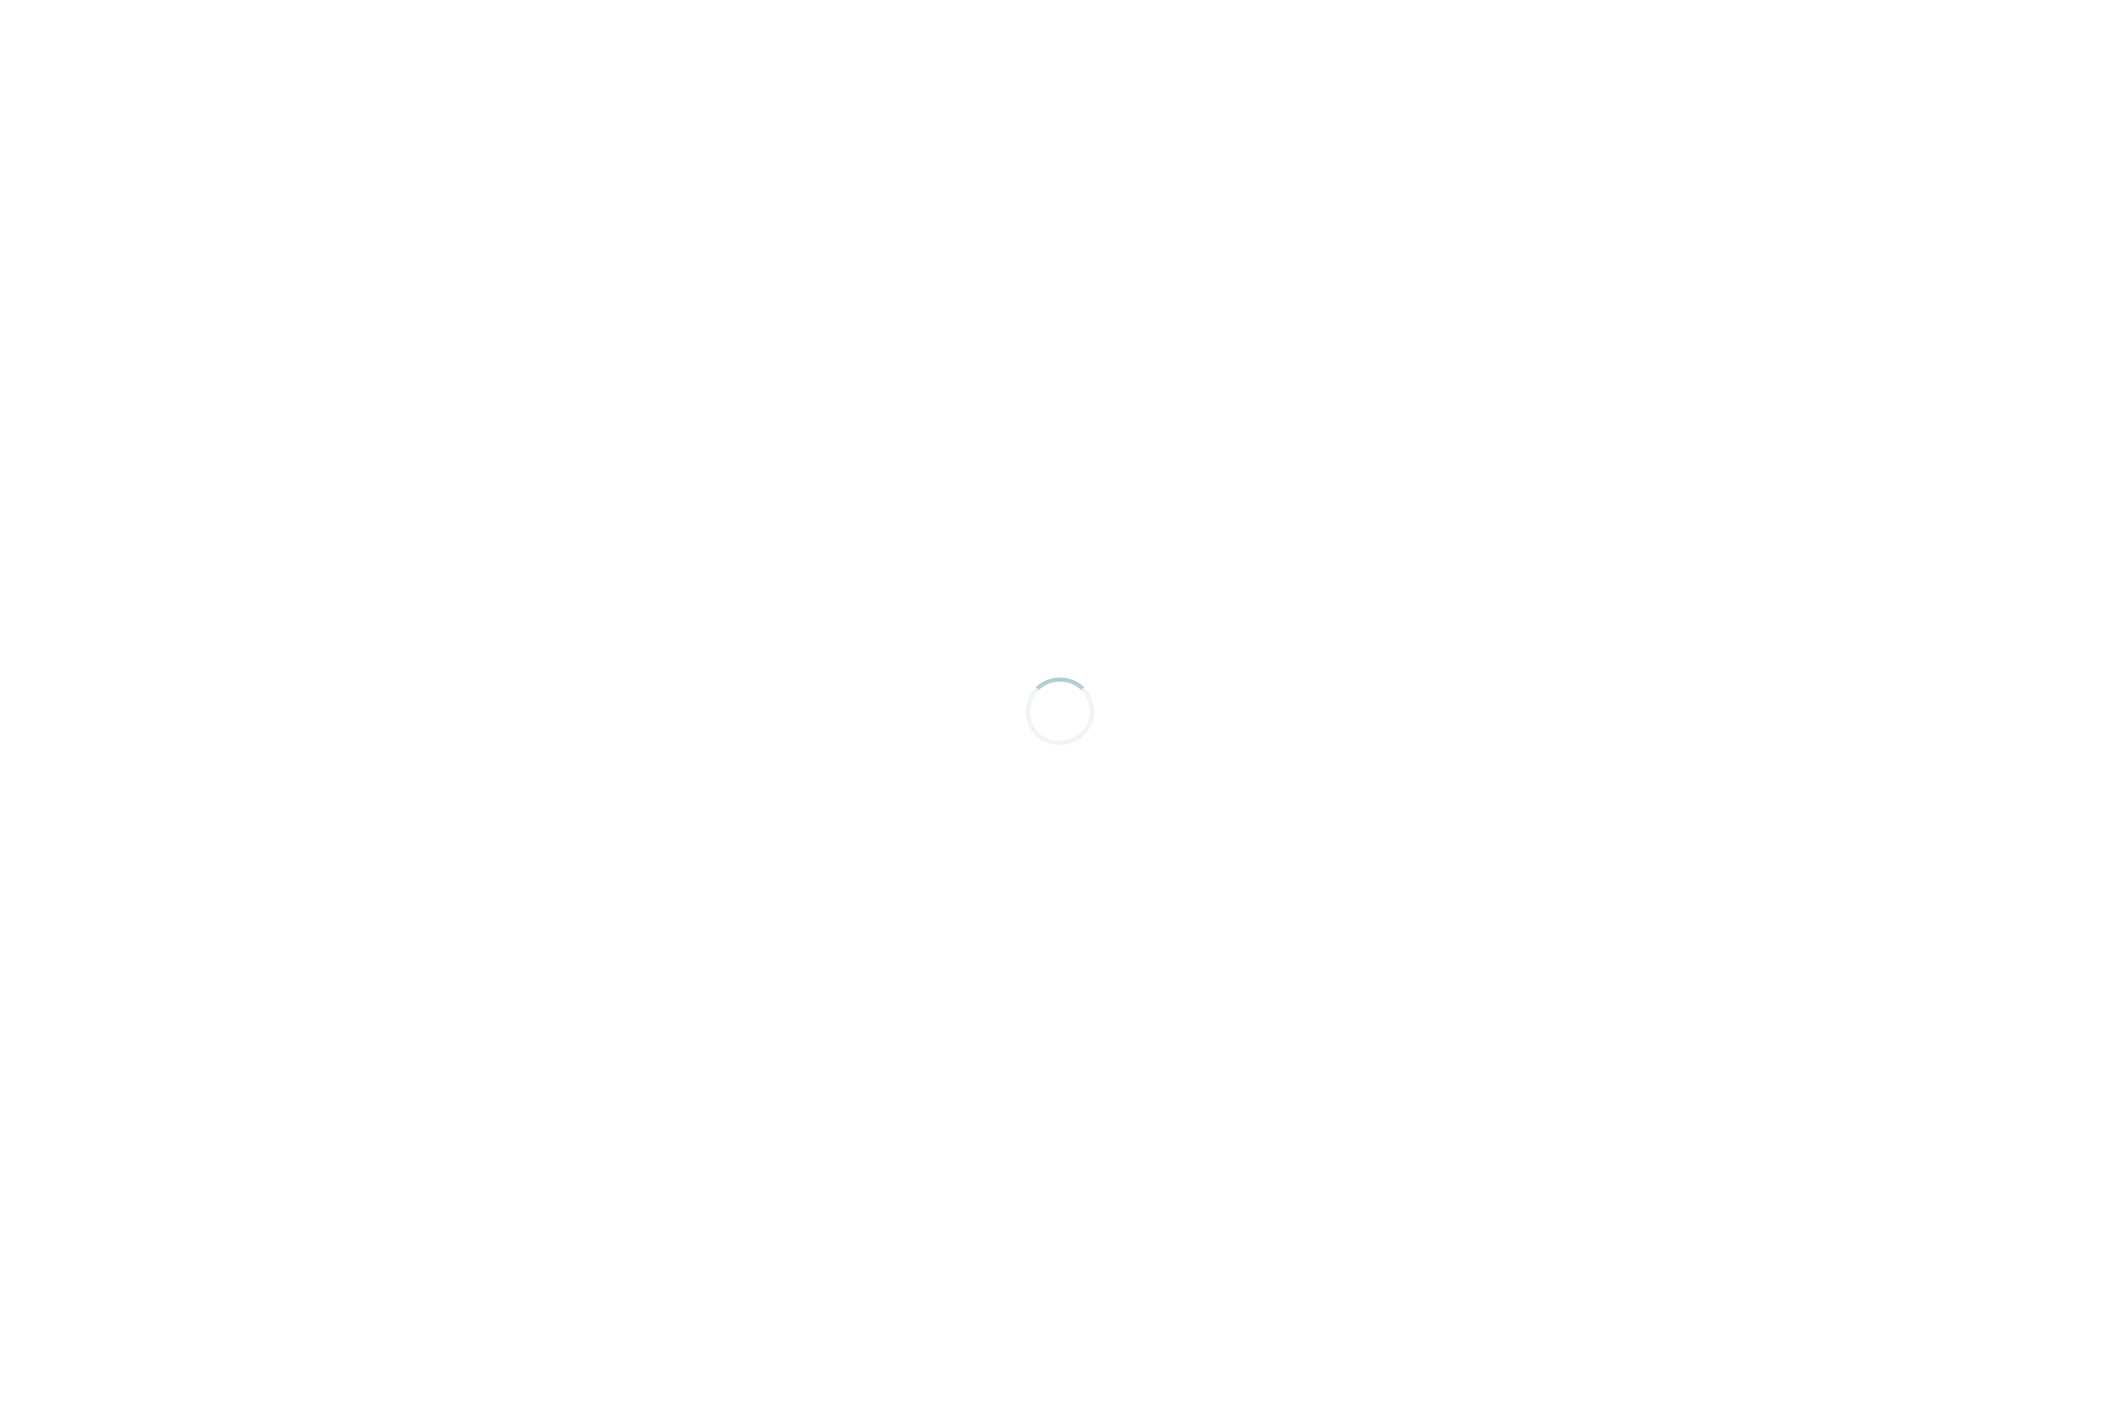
%!PS-Adobe-3.0
%%BoundingBox: 0 0 2119 1421
%%LanguageLevel: 3
%%Pages: 1
%%EndComments
%%BeginProlog
/m { moveto } bind def
/c { curveto } bind def
/S { stroke } bind def
/w { setlinewidth } bind def
/bx { rectfill } def
/al { dup .setfillconstantalpha .setstrokeconstantalpha } def
%%EndProlog
%%BeginSetup
<< /PageSize [2119 1421] /PageUsesTransparency true >> setpagedevice
%%EndSetup
%%Page: 1 1
0 .pushpdf14devicefilter
0 1421 translate 1 -1 scale
4 setmiterlimit
1 setgray
0 0 2119 1421 bx
0.69 0.812 0.824 setrgbcolor
3.8 w
1037.5 688.5 m 1049.5 676.5 1070.5 676.5 1082.5 688.5 c S
0.2 al
1082.5 688.5 m 1088.5 694.5 1092 703 1092 711 c 1092 749.5 1036 755 1028.5 717.5 c 1026.5 707 1030 696 1037.5 688.5 c S
.poppdf14devicefilter showpage
%%EOF
